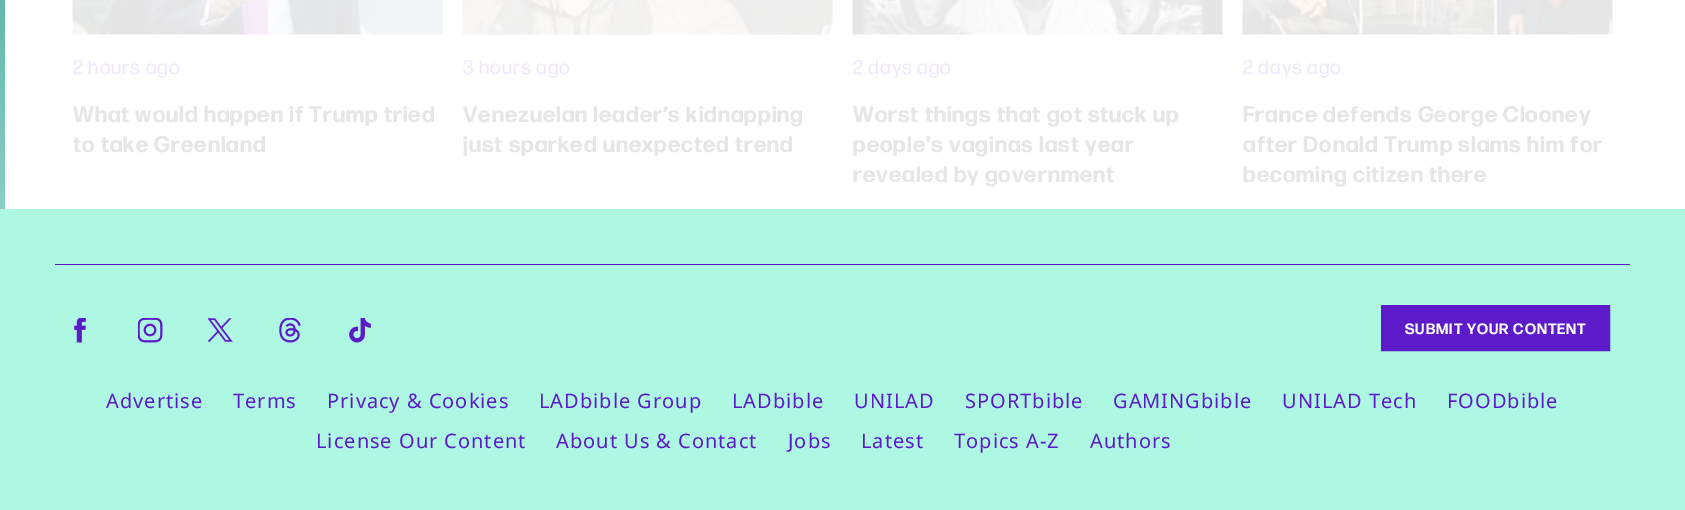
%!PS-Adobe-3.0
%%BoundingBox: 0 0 1685 510
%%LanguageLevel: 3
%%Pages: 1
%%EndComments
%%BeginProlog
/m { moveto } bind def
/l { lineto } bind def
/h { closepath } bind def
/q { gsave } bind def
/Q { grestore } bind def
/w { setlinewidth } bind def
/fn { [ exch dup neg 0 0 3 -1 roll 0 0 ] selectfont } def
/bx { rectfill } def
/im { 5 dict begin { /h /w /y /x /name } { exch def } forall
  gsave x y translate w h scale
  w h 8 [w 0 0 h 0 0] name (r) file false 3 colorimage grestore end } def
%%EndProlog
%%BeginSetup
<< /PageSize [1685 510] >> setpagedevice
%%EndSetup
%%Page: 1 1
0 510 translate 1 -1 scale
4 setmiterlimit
1 setgray
0 0 1685 510 bx
q 0 0 m 5 0 l 5 209 l 0 209 l h clip newpath
<< /ShadingType 2 /ColorSpace /DeviceRGB /Coords [2.5 0 2.5 510] /Extend [true true] /Function << /FunctionType 2 /Domain [0 1] /C0 [0.392 0.718 0.678] /C1 [0.741 0.961 0.894] /N 1 >> >> shfill Q
(image0.raw) 72 0 371 35 im
/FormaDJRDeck-Regular 20 fn
0.937 0.91 0.98 setrgbcolor
73 74 m 1 0 (2 hours ago) ashow
/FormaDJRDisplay-Bold 22.5 fn
0.902 setgray
73 122 m 1 0 (What would happen if Trump tried) ashow
q
73 99 370 60 rectclip
73 152 m 1 0 (to take Greenland) ashow
Q
(image1.raw) 462 0 371 35 im
/FormaDJRDeck-Regular 20 fn
0.937 0.91 0.98 setrgbcolor
463 74 m 1 0 (3 hours ago) ashow
q
463 99 370 60 rectclip
/FormaDJRDisplay-Bold 22.5 fn
0.902 setgray
463 122 m 1 0 (Venezuelan leader’s kidnapping) ashow
Q
/FormaDJRDisplay-Bold 22.5 fn
0.902 setgray
463 152 m 1 0 (just sparked unexpected trend) ashow
(image2.raw) 852 0 371 35 im
/FormaDJRDeck-Regular 20 fn
0.937 0.91 0.98 setrgbcolor
853 74 m 1 0 (2 days ago) ashow
/FormaDJRDisplay-Bold 22.5 fn
0.902 setgray
853 122 m 1 0 (Worst things that got stuck up) ashow
853 152 m 1 0 (people's vaginas last year) ashow
853 182 m 1 0 (revealed by government) ashow
(image3.raw) 1242 0 371 35 im
/FormaDJRDeck-Regular 20 fn
0.937 0.91 0.98 setrgbcolor
1243 74 m 1 0 (2 days ago) ashow
/FormaDJRDisplay-Bold 22.5 fn
0.902 setgray
1243 122 m 1 0 (France defends George Clooney) ashow
q
1243 99 370 90 rectclip
1243 152 m 1 0 (after Donald Trump slams him for) ashow
Q
1243 182 m 1 0 (becoming citizen there) ashow
0.678 0.969 0.89 setrgbcolor
0 209 1685 301 bx
0.361 0.102 0.788 setrgbcolor
55 264 1575 1 bx
(image4.raw) 74 318 12 25 im
(image5.raw) 138 318 25 25 im
(image6.raw) 208 318 25 24 im
(image7.raw) 279 318 22 25 im
(image8.raw) 349 318 22 25 im
4 w
1383 307 225 42 rectstroke
1385 309 221 38 bx
/FormaDJRDisplay-Bold 15 fn
1 setgray
1405 334 m 1 0 (SUBMIT YOUR CONTENT) ashow
/NotoSans-Regular 20 fn
0.361 0.102 0.788 setrgbcolor
106 408 m 1 0 (Advertise) ashow
233 408 m 1 0 (Terms) ashow
327 408 m 1 0 (Privacy & Cookies) ashow
539 408 m 1 0 (LADbible Group) ashow
732 408 m 1 0 (LADbible) ashow
854 408 m 1 0 (UNILAD) ashow
965 408 m 1 0 (SPORTbible) ashow
1113 408 m 1 0 (GAMINGbible) ashow
1282 408 m 1 0 (UNILAD Tech) ashow
1447 408 m 1 0 (FOODbible) ashow
316 448 m 1 0 (License Our Content) ashow
556 448 m 1 0 (About Us & Contact) ashow
788 448 m 1 0 (Jobs) ashow
861 448 m 1 0 (Latest) ashow
954 448 m 1 0 (Topics A-Z) ashow
1090 448 m 1 0 (Authors) ashow
showpage
%%EOF
